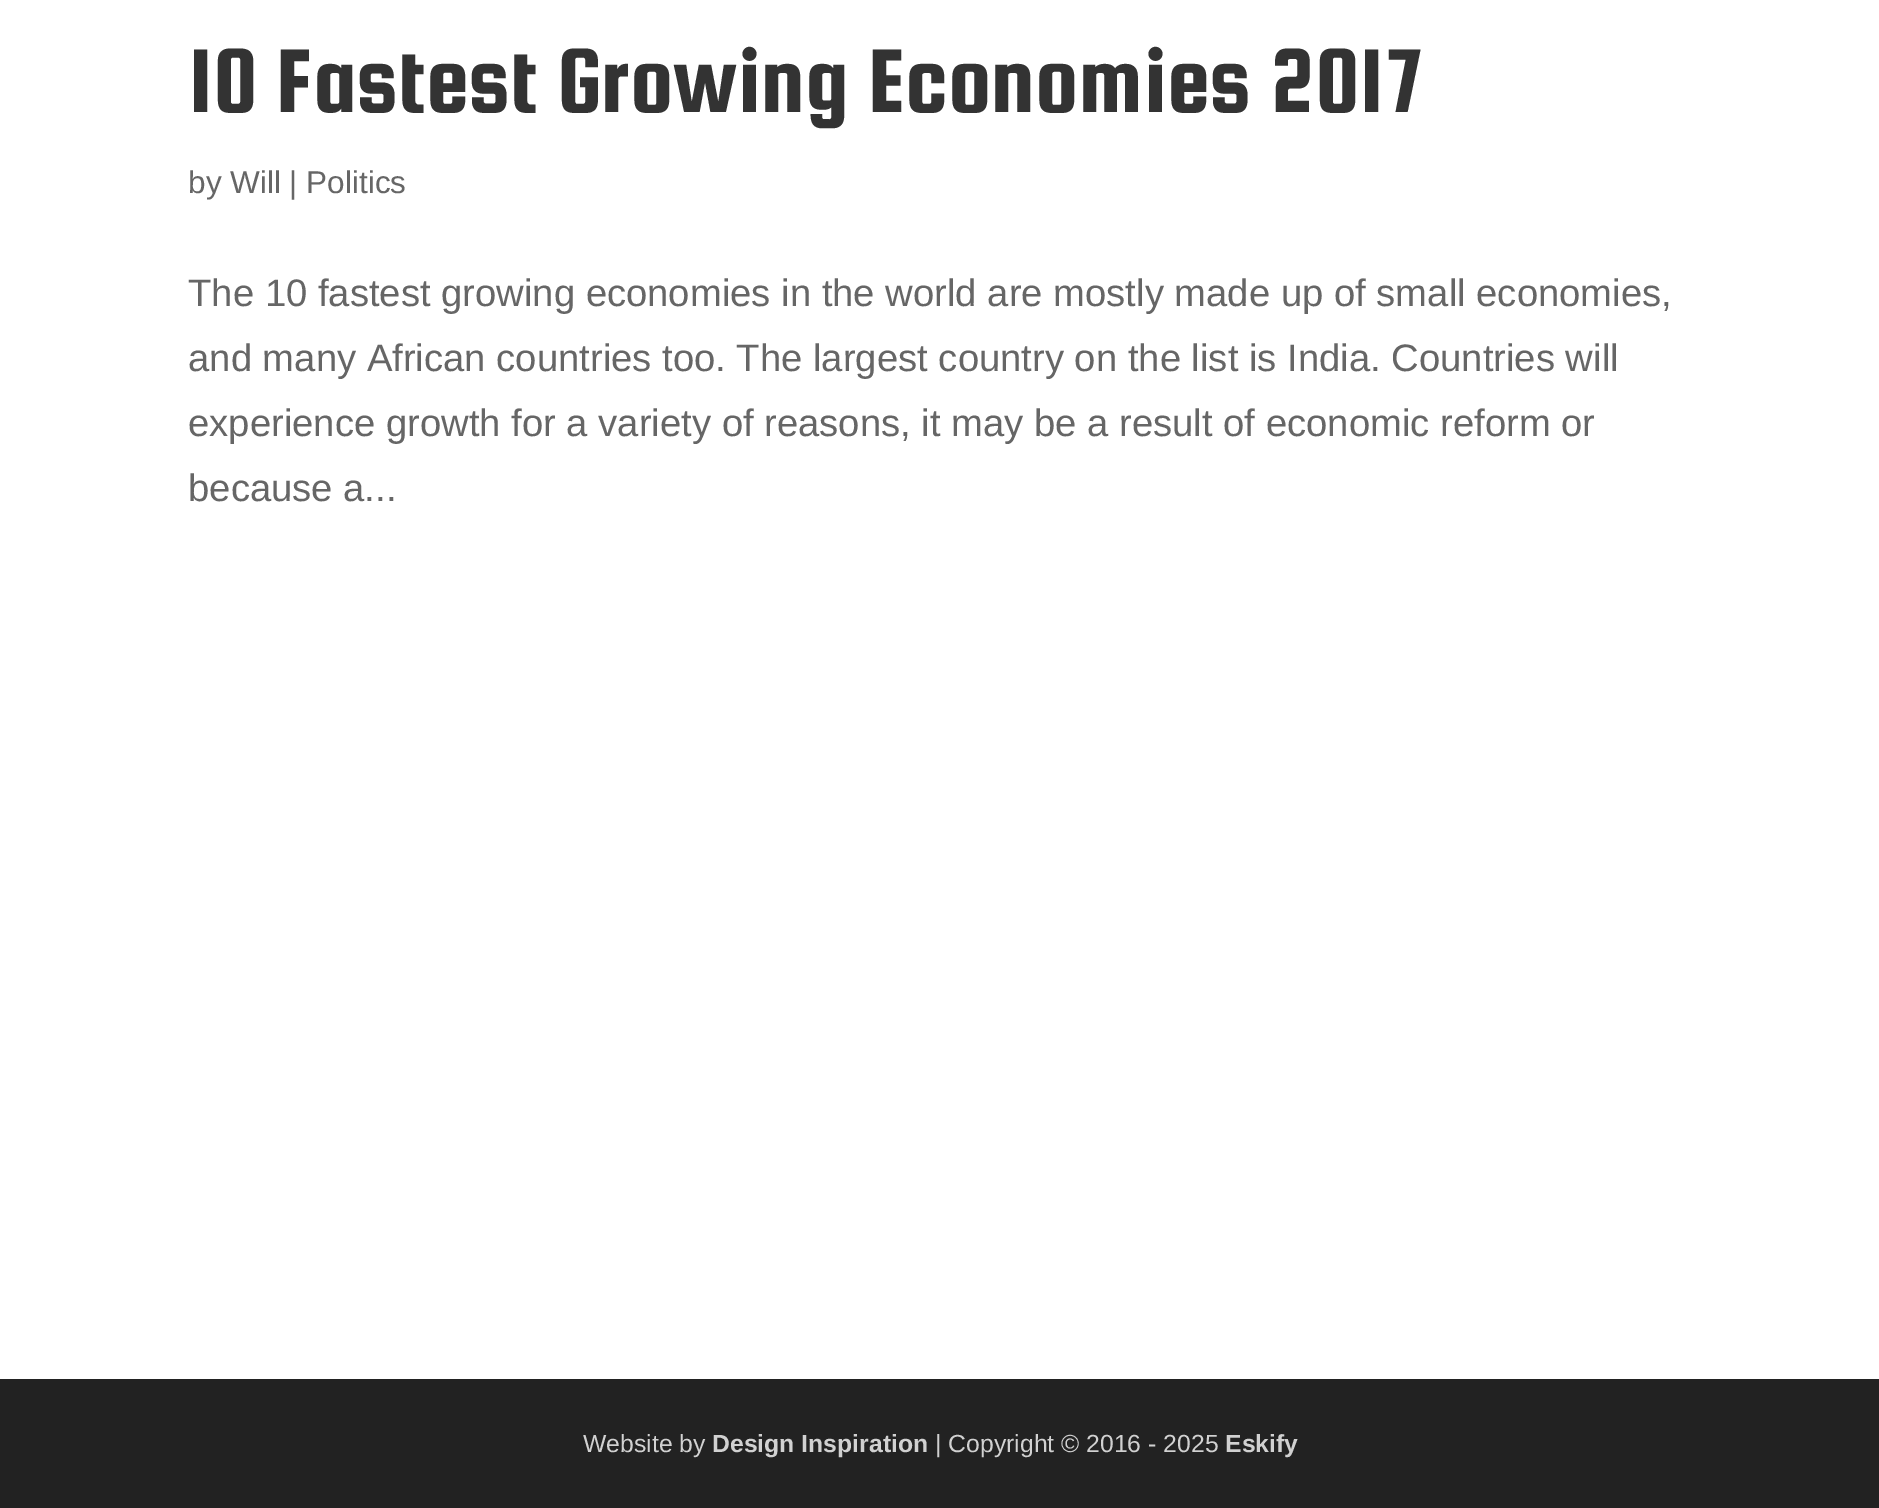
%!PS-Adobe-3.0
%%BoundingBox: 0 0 1879 1508
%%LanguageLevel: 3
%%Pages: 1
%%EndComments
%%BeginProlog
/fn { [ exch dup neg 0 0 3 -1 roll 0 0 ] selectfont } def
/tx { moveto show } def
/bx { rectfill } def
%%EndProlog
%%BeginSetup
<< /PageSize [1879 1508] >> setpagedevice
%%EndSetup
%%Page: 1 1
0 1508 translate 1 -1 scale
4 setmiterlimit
1 setgray
0 0 1879 1508 bx
/SquadaOne-Regular 96.75 fn
0.2 setgray
(10 Fastest Growing Economies 2017) 188 112 tx
/LiberationSans-Regular 31.5 fn
0.4 setgray
(by Will | Politics) 188 193 tx
/LiberationSans-Regular 38.25 fn
(The 10 fastest growing economies in the world are mostly made up of small economies,) 188 306 tx
(and many African countries too. The largest country on the list is India. Countries will) 188 371 tx
(experience growth for a variety of reasons, it may be a result of economic reform or) 188 436 tx
(because a...) 188 501 tx
0.133 setgray
0 1379 1879 129 bx
/LiberationSans-Regular 24.75 fn
0.82 setgray
(Website by) 583 1452 tx
/LiberationSans-Bold 24.75 fn
(Design Inspiration) 712 1452 tx
/LiberationSans-Regular 24.75 fn
(| Copyright © 2016 - 2025) 935 1452 tx
/LiberationSans-Bold 24.75 fn
(Eskify) 1225 1452 tx
showpage
%%EOF
